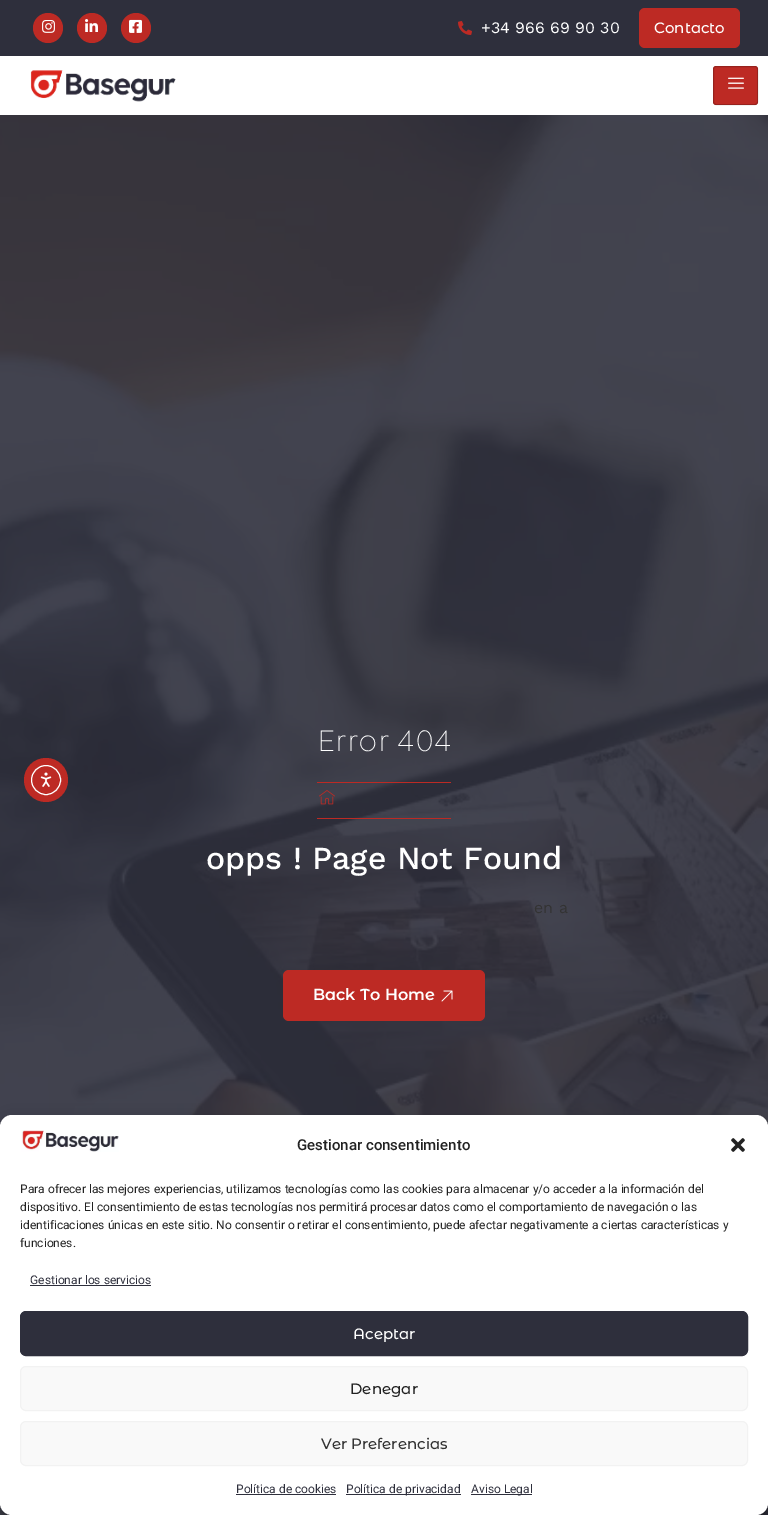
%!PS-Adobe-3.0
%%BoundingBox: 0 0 768 1515
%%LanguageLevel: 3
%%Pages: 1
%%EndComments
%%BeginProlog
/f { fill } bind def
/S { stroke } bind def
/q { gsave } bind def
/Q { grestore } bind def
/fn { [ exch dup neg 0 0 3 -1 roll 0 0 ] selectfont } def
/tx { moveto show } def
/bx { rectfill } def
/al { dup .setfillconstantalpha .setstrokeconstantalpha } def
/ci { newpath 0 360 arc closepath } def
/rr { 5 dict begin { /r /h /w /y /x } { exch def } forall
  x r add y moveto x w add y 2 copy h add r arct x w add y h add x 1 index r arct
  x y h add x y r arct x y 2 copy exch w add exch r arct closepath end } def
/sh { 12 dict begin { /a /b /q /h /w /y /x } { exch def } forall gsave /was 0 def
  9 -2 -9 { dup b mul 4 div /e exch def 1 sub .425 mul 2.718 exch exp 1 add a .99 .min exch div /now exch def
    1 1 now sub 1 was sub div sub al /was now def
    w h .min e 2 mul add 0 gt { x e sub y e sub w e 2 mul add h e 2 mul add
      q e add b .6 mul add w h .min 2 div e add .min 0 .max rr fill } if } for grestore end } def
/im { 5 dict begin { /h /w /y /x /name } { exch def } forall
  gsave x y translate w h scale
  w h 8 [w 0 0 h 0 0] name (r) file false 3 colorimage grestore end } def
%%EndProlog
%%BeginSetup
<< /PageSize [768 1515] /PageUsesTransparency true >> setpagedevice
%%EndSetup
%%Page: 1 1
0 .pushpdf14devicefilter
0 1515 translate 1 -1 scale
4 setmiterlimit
1 setgray
0 0 768 1515 bx
0.18 0.184 0.235 setrgbcolor
0 0 768 56 bx
0.741 0.165 0.141 setrgbcolor
48 28 15 ci f
(image0.raw) 42 20 13 13 im
92 28 15 ci f
(image1.raw) 85 19 13 13 im
136 28 15 ci f
(image2.raw) 129 19 13 14 im
(image3.raw) 458 21 14 14 im
/WorkSans-Regular 16 fn
1 setgray
(+34 966 69 90 30) 481 33 tx
0.741 0.165 0.141 setrgbcolor
639 8 101 40 6 rr f
/MontserratAlternates-Medium 15 fn
1 setgray
(Contacto) 654 33 tx
(image4.raw) 30 70 146 32 im
0.741 0.165 0.141 setrgbcolor
713 66 45 39 3 rr f
0.2 al
0 setgray
713.5 66.5 44 38 2.5 rr S
1 al
(image5.raw) 728 77 16 12 im
(image7.raw) 0 115 768 1400 im
0.741 0.165 0.141 setrgbcolor
46 780 22 ci f
1 setgray
46 780 14.5 ci S
(image6.raw) 40 772 12 15 im
/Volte-Light 32 fn
(Error 404) 317 751 tx
0.741 0.165 0.141 setrgbcolor
317 782 134 1 bx
317 818 134 1 bx
(image8.raw) 319 790 16 15 im
/WorkSans-Medium 32 fn
1 setgray
(opps ! Page Not Found) 206 869 tx
/WorkSans-Regular 16 fn
0.2 setgray
(en a) 534 913 tx
0.741 0.165 0.141 setrgbcolor
283 970 202 51 6 rr f
/MontserratAlternates-SemiBold 16 fn
1 setgray
(Back To Home) 313 1000 tx
(image9.raw) 441 990 12 12 im
0 setgray
0 1121 768 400 12 3 0.23 sh
0 1125 768 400 12 10 0.19 sh
1 setgray
0 1115 768 400 12 rr f
(image10.raw) 21 1130 98 22 im
/Roboto-Medium 15 fn
0.133 setgray
(Gestionar consentimiento) 297 1150 tx
(image11.raw) 731 1138 14 14 im
/Roboto-Regular 12 fn
(Para ofrecer las mejores experiencias, utilizamos tecnologías como las cookies para almacenar y/o acceder a la información del) 20 1193 tx
(dispositivo. El consentimiento de estas tecnologías nos permitirá procesar datos como el comportamiento de navegación o las) 20 1211 tx
(identificaciones únicas en este sitio. No consentir o retirar el consentimiento, puede afectar negativamente a ciertas características y) 20 1229 tx
(funciones.) 20 1247 tx
0.18 0.184 0.235 setrgbcolor
(Gestionar los servicios) 30 1284 tx
30 1285 121 1 bx
20.5 1311.5 727 44 5.5 rr q f Q
S
/MontserratAlternates-Medium 15 fn
1 setgray
(Aceptar) 353 1339 tx
0.976 setgray
20.5 1366.5 727 44 5.5 rr q f Q
0.949 setgray
S
0.133 setgray
(Denegar) 350 1394 tx
0.976 setgray
20.5 1421.5 727 44 5.5 rr q f Q
0.949 setgray
S
0.2 setgray
(Ver Preferencias) 321 1449 tx
/Roboto-Regular 12 fn
0.18 0.184 0.235 setrgbcolor
(Política de cookies) 236 1493 tx
236 1494 100 1 bx
346 1494 115 1 bx
(Política de privacidad) 346 1493 tx
471 1494 61 1 bx
(Aviso Legal) 471 1493 tx
.poppdf14devicefilter showpage
%%EOF
